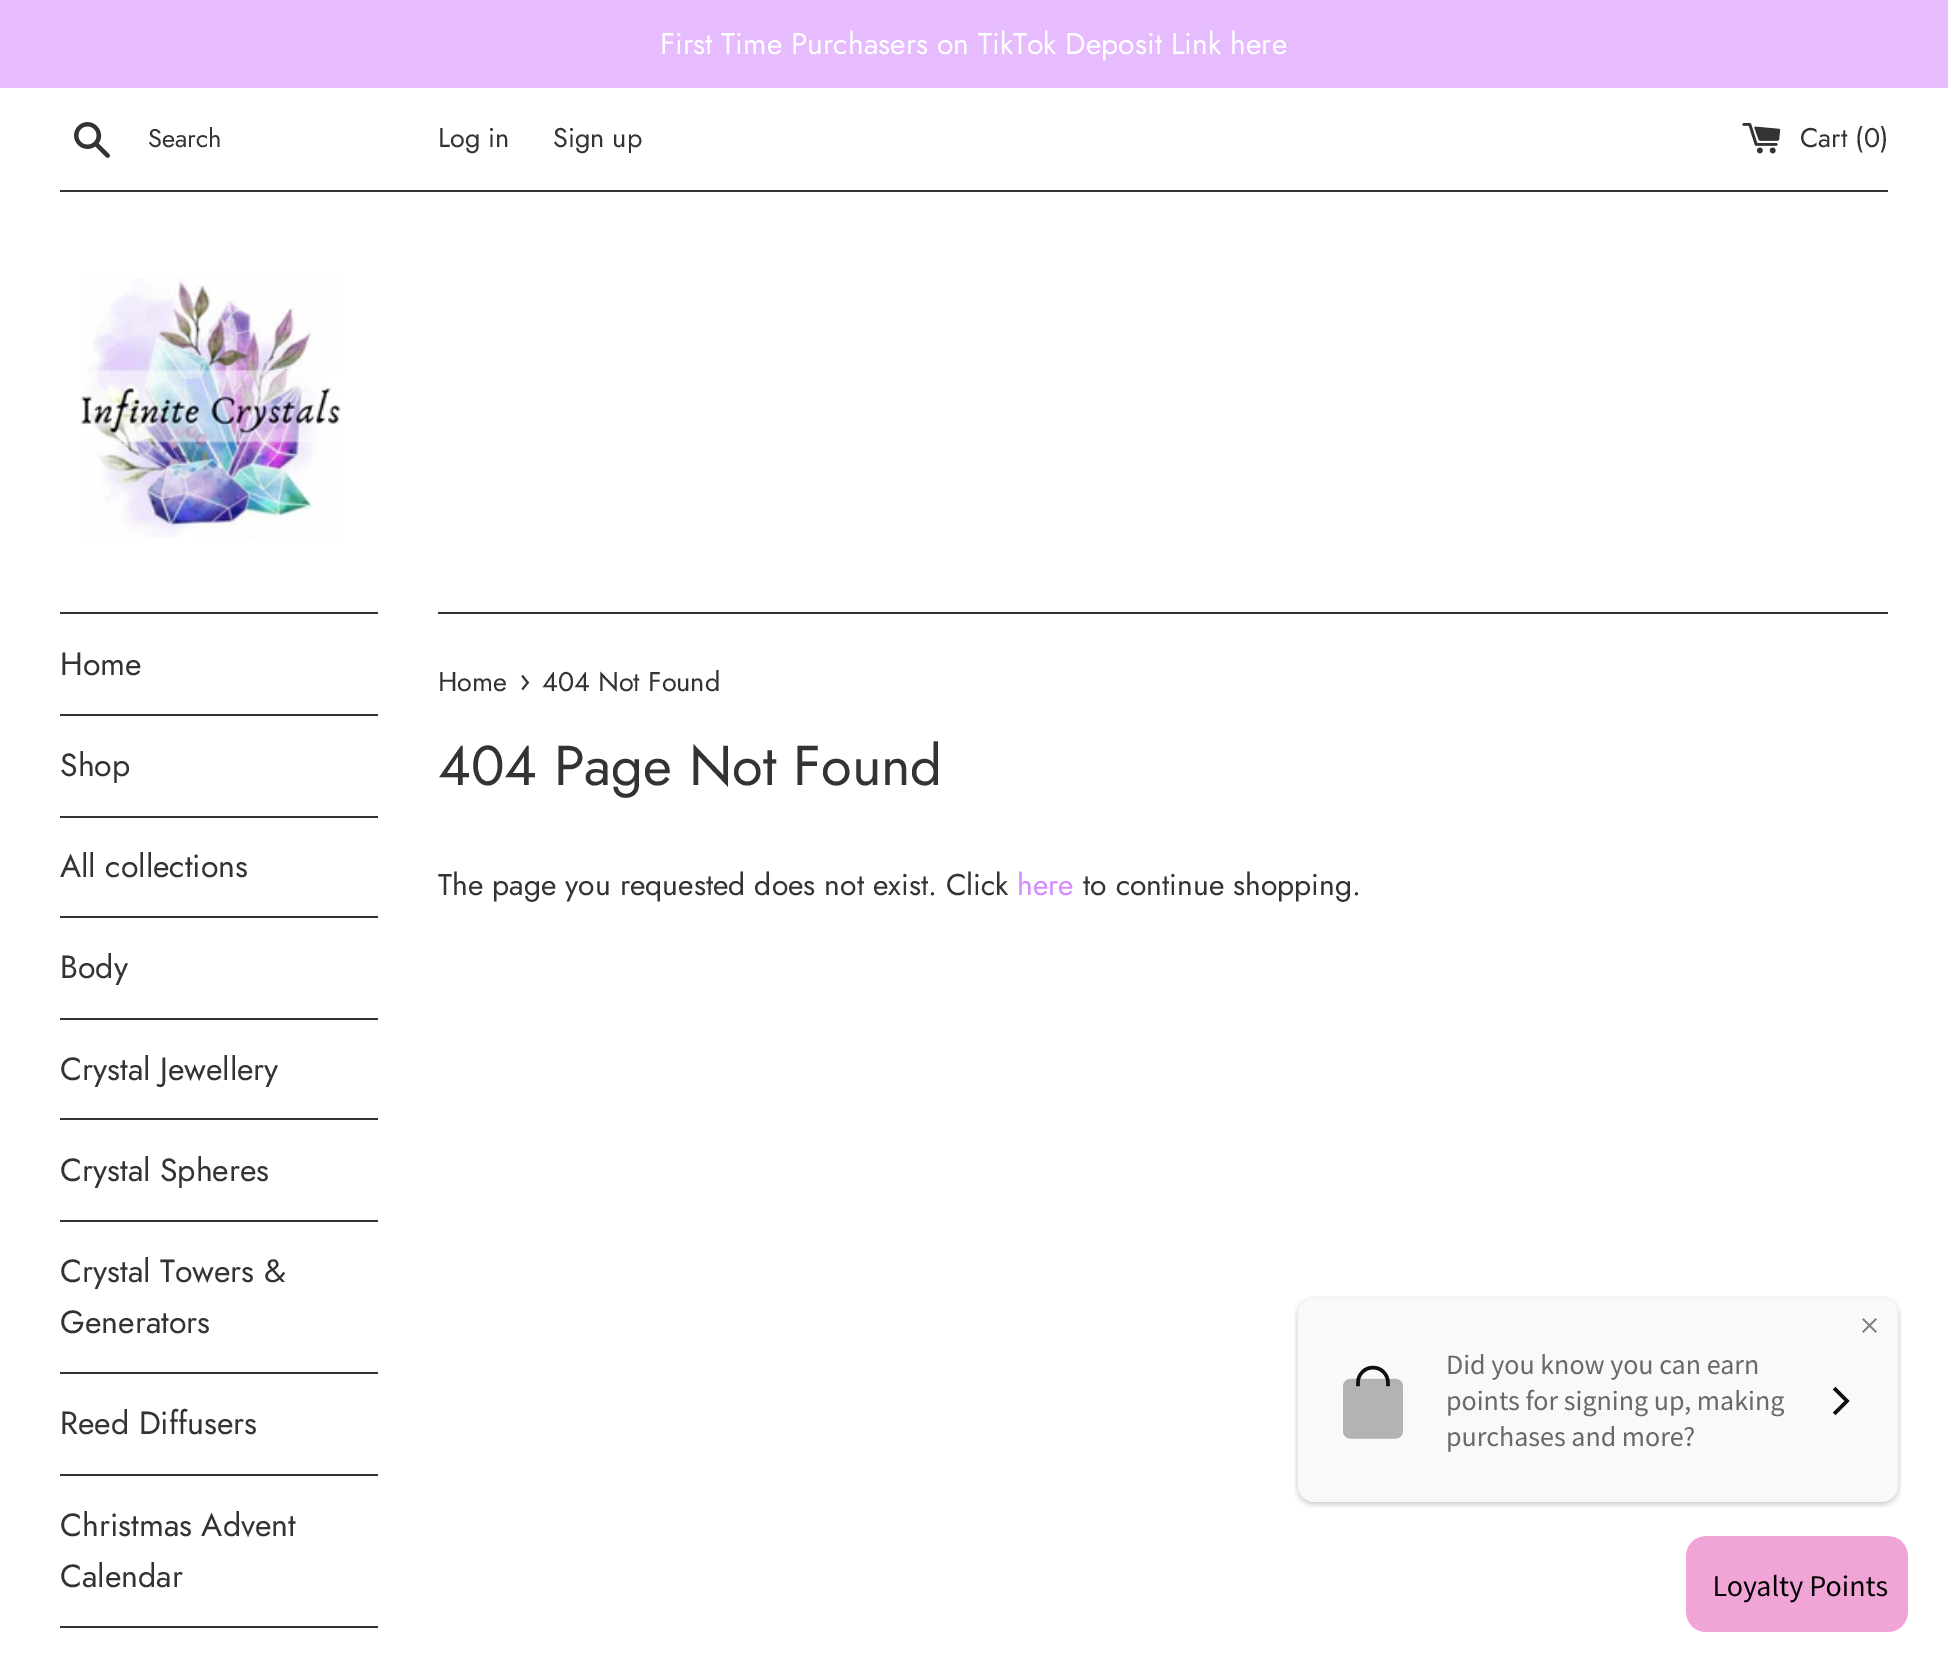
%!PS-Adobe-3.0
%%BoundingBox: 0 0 1948 1671
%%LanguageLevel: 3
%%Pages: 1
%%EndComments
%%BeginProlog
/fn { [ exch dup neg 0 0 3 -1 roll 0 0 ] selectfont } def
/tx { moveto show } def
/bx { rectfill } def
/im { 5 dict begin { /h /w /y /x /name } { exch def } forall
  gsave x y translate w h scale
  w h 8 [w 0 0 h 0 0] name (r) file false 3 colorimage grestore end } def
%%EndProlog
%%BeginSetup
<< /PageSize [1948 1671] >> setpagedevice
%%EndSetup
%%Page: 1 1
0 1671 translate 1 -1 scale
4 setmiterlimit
1 setgray
0 0 1948 1671 bx
0.902 0.737 1 setrgbcolor
0 0 1948 88 bx
/Jost-Regular 30 fn
1 setgray
(First Time Purchasers on TikTok Deposit Link here) 660 54 tx
(image0.raw) 74 122 36 36 im
/Jost-Regular 25.5 fn
0.2 setgray
(Search) 148 147 tx
/Jost-Regular 27 fn
(Log in) 438 147 tx
(Sign up) 553 147 tx
(image1.raw) 1742 123 39 31 im
(Cart \(0\)) 1800 147 tx
60 190 1828 2 bx
(image2.raw) 80 278 261 260 im
60 612 318 2 bx
60 714 318 2 bx
/Jost-Regular 32 fn
(Home) 60 675 tx
60 816 318 2 bx
(Shop) 60 776 tx
60 916 318 2 bx
(All collections) 60 877 tx
60 1018 318 2 bx
(Body) 60 978 tx
60 1118 318 2 bx
(Crystal Jewellery) 60 1080 tx
60 1220 318 2 bx
(Crystal Spheres) 60 1181 tx
60 1372 318 2 bx
(Crystal Towers &) 60 1282 tx
(Generators) 60 1333 tx
60 1474 318 2 bx
(Reed Diffusers) 60 1434 tx
60 1626 318 2 bx
(Christmas Advent) 60 1536 tx
(Calendar) 60 1587 tx
438 612 1450 2 bx
/Jost-Regular 27 fn
(Home) 438 691 tx
/Jost-Regular 33 fn
(›) 519 691 tx
/Jost-Regular 27 fn
(404 Not Found) 542 691 tx
/Jost-Regular 56 fn
(404 Page Not Found) 438 785 tx
/Jost-Regular 30 fn
(The page you requested does not exist. Click) 438 895 tx
0.827 0.545 1 setrgbcolor
(here) 1017 895 tx
0.2 setgray
(to continue shopping.) 1083 895 tx
(image3.raw) 1294 1296 608 212 im
(image4.raw) 1686 1536 222 96 im
showpage
%%EOF
